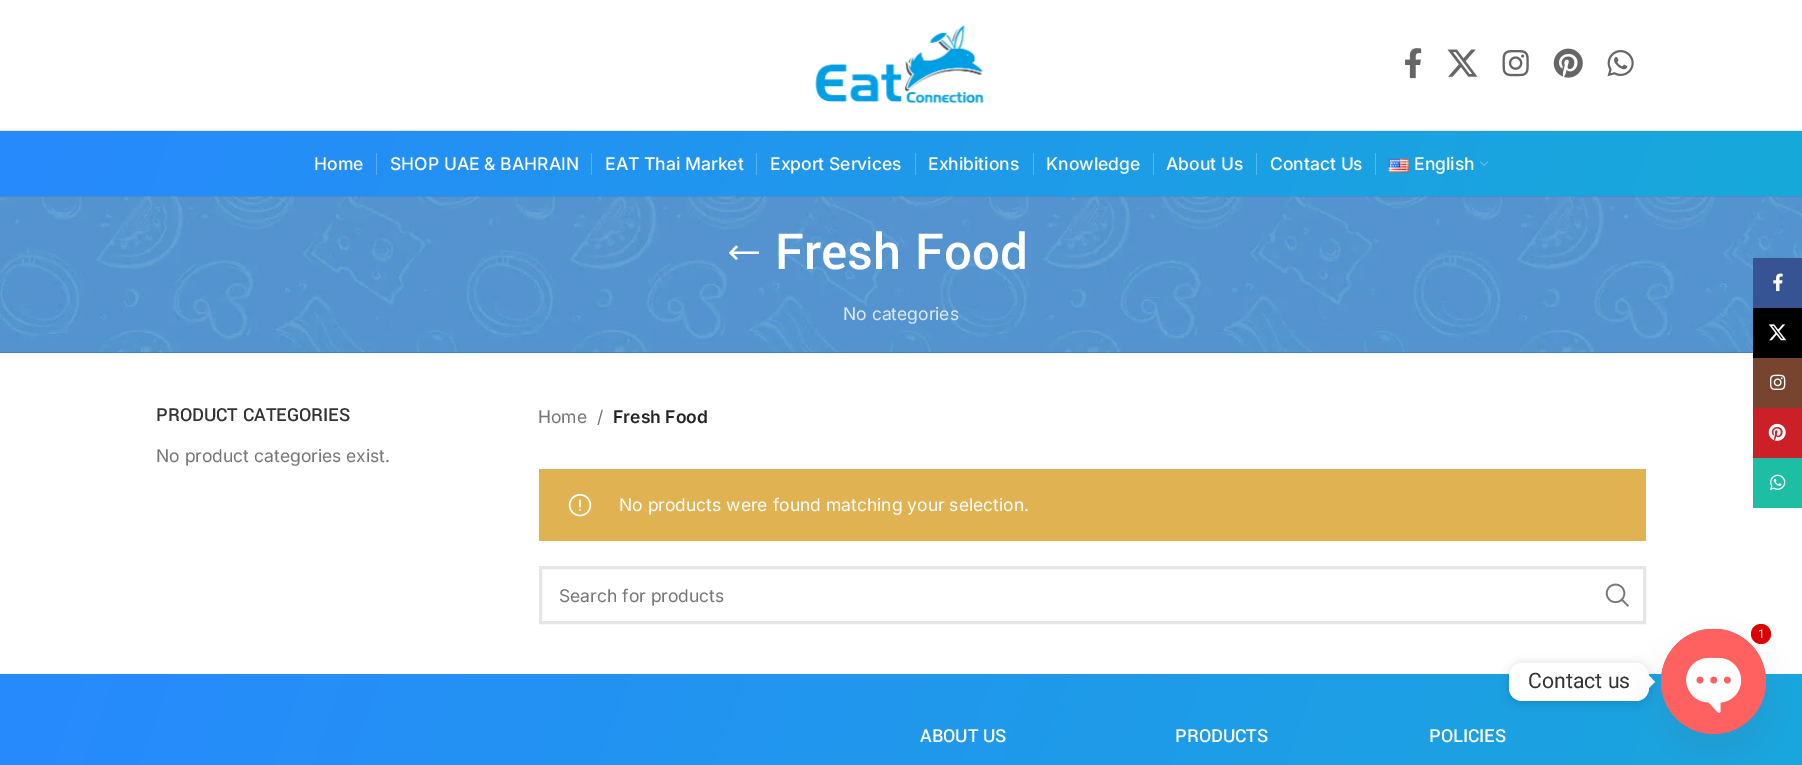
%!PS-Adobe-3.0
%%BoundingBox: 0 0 1802 765
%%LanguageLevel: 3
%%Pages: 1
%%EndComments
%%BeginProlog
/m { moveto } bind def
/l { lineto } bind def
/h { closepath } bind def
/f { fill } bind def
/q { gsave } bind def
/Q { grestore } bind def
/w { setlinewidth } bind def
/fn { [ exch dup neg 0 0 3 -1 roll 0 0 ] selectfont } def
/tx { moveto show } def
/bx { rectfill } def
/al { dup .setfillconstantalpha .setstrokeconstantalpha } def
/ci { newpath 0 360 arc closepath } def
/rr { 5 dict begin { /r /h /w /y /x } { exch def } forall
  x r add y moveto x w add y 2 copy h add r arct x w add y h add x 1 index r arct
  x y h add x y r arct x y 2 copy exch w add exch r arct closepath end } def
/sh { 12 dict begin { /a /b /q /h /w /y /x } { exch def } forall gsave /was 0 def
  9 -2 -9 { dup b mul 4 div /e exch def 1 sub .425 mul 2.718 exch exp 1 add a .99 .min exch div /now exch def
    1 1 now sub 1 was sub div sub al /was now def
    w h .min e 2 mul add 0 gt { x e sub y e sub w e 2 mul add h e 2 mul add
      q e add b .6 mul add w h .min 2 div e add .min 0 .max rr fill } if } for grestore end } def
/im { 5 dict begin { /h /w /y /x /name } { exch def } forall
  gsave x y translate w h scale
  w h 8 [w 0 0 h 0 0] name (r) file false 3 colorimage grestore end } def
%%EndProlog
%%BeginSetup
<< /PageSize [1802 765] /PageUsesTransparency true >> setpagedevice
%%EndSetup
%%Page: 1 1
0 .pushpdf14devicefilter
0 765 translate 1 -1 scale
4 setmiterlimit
1 setgray
0 0 1802 765 bx
0.902 setgray
0 130 1802 1 bx
(image0.raw) 815 25 169 79 im
(image1.raw) 1405 48 17 31 im
(image2.raw) 1447 49 31 28 im
(image3.raw) 1502 50 27 27 im
(image4.raw) 1553 48 30 30 im
(image5.raw) 1607 50 27 27 im
q 0 131 m 1802 131 l 1802 196 l 0 196 l h clip newpath
<< /ShadingType 2 /ColorSpace /DeviceRGB /Coords [91 -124 1756 467] /Extend [true true] /Function << /FunctionType 3 /Domain [0 1] /Functions [<< /FunctionType 2 /Domain [0 1] /C0 [0.153 0.541 0.988] /C1 [0.153 0.541 0.988] /N 1 >> << /FunctionType 2 /Domain [0 1] /C0 [0.153 0.541 0.988] /C1 [0.09 0.667 0.851] /N 1 >>] /Bounds [0.03] /Encode [0 1 0 1] >> >> shfill Q
/Inter-Medium 17.5 fn
1 setgray
(Home) 314 170 tx
0.357 0.675 0.973 setrgbcolor
376 153 1 22 bx
1 setgray
(SHOP UAE & BAHRAIN) 390 170 tx
0.349 0.686 0.961 setrgbcolor
591 153 1 22 bx
1 setgray
(EAT Thai Market) 605 170 tx
0.349 0.694 0.949 setrgbcolor
756 153 1 22 bx
1 setgray
(Export Services) 770 170 tx
0.341 0.702 0.941 setrgbcolor
915 153 1 22 bx
1 setgray
(Exhibitions) 928 170 tx
0.337 0.706 0.937 setrgbcolor
1033 153 1 22 bx
1 setgray
(Knowledge) 1046 170 tx
0.337 0.714 0.929 setrgbcolor
1153 153 1 22 bx
1 setgray
(About Us) 1166 170 tx
0.333 0.718 0.925 setrgbcolor
1256 153 1 22 bx
1 setgray
(Contact Us) 1270 170 tx
0.329 0.725 0.914 setrgbcolor
1375 153 1 22 bx
(image6.raw) 1388 158 21 15 im
1 setgray
(English) 1414 170 tx
(image7.raw) 1480 161 8 5 im
0.118 0.451 0.745 setrgbcolor
0 196 1802 157 bx
(image8.raw) 0 196 1802 157 im
1 setgray
738 258.5 m 733.5 254 l 759 254 l 759 251.5 l 733.5 251.5 l 738 247 l 736 245.5 l 729 253 l 736 260 l h f
/Yantramanav-Medium 55 fn
(Fresh Food) 775 269 tx
/Inter-Regular 17.5 fn
0.867 0.918 0.965 setrgbcolor
(No categories) 843 320 tx
/Yantramanav-Medium 20 fn
0.2 setgray
(PRODUCT CATEGORIES) 156 421 tx
/Inter-Regular 17.5 fn
0.463 setgray
(No product categories exist.) 156 462 tx
(Home) 538 423 tx
(/) 597 423 tx
/Inter-SemiBold 17.5 fn
0.141 setgray
(Fresh Food) 613 423 tx
0.878 0.698 0.322 setrgbcolor
539 469 1107 72 bx
(image9.raw) 568 493 24 24 im
/Inter-Regular 17.5 fn
1 setgray
(No products were found matching your selection.) 619 511 tx
0.902 setgray
3 w
540.5 567.5 1104 55 rectstroke
0.463 setgray
(Search for products) 559 602 tx
(image10.raw) 1605 583 24 24 im
q 0 674 m 1802 674 l 1802 765 l 0 765 l h clip newpath
<< /ShadingType 2 /ColorSpace /DeviceRGB /Coords [-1.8 679 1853 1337] /Extend [true true] /Function << /FunctionType 3 /Domain [0 1] /Functions [<< /FunctionType 2 /Domain [0 1] /C0 [0.153 0.541 0.988] /C1 [0.153 0.541 0.988] /N 1 >> << /FunctionType 2 /Domain [0 1] /C0 [0.153 0.541 0.988] /C1 [0.09 0.667 0.851] /N 1 >>] /Bounds [0.03] /Encode [0 1 0 1] >> >> shfill Q
/Yantramanav-Medium 20 fn
1 setgray
(ABOUT US) 920 742 tx
(PRODUCTS) 1175 742 tx
(POLICIES) 1429 742 tx
0.212 0.329 0.576 setrgbcolor
1753 258 49 50 bx
(image11.raw) 1773 273 10 19 im
0 setgray
1753 308 49 50 bx
(image12.raw) 1768 324 19 17 im
0.467 0.267 0.188 setrgbcolor
1753 358 49 50 bx
(image13.raw) 1770 374 16 16 im
0.796 0.125 0.153 setrgbcolor
1753 408 49 50 bx
(image14.raw) 1768 423 18 18 im
0.118 0.745 0.647 setrgbcolor
1753 458 49 50 bx
(image15.raw) 1770 474 16 16 im
0 setgray
1509 664 140 39 13 5 0.15 sh
1 setgray
1509 663 140 38 13 rr f
1649 688 m 1649 675.5 l 1655 682 l h f
0.286 0.408 0.494 setrgbcolor
1661 649 105 105 52.5 15 0.16 sh
1 0.376 0.376 setrgbcolor
1713.5 681.5 52.5 ci f
(image16.raw) 1661 629 105 105 im
0.867 0 0 setrgbcolor
1761 634 10 ci f
/Roboto-Regular 12 fn
1 setgray
(1) 1758 638 tx
/Roboto-Regular 21.25 fn
0.2 setgray
(Contact us) 1528 688 tx
.poppdf14devicefilter showpage
%%EOF
